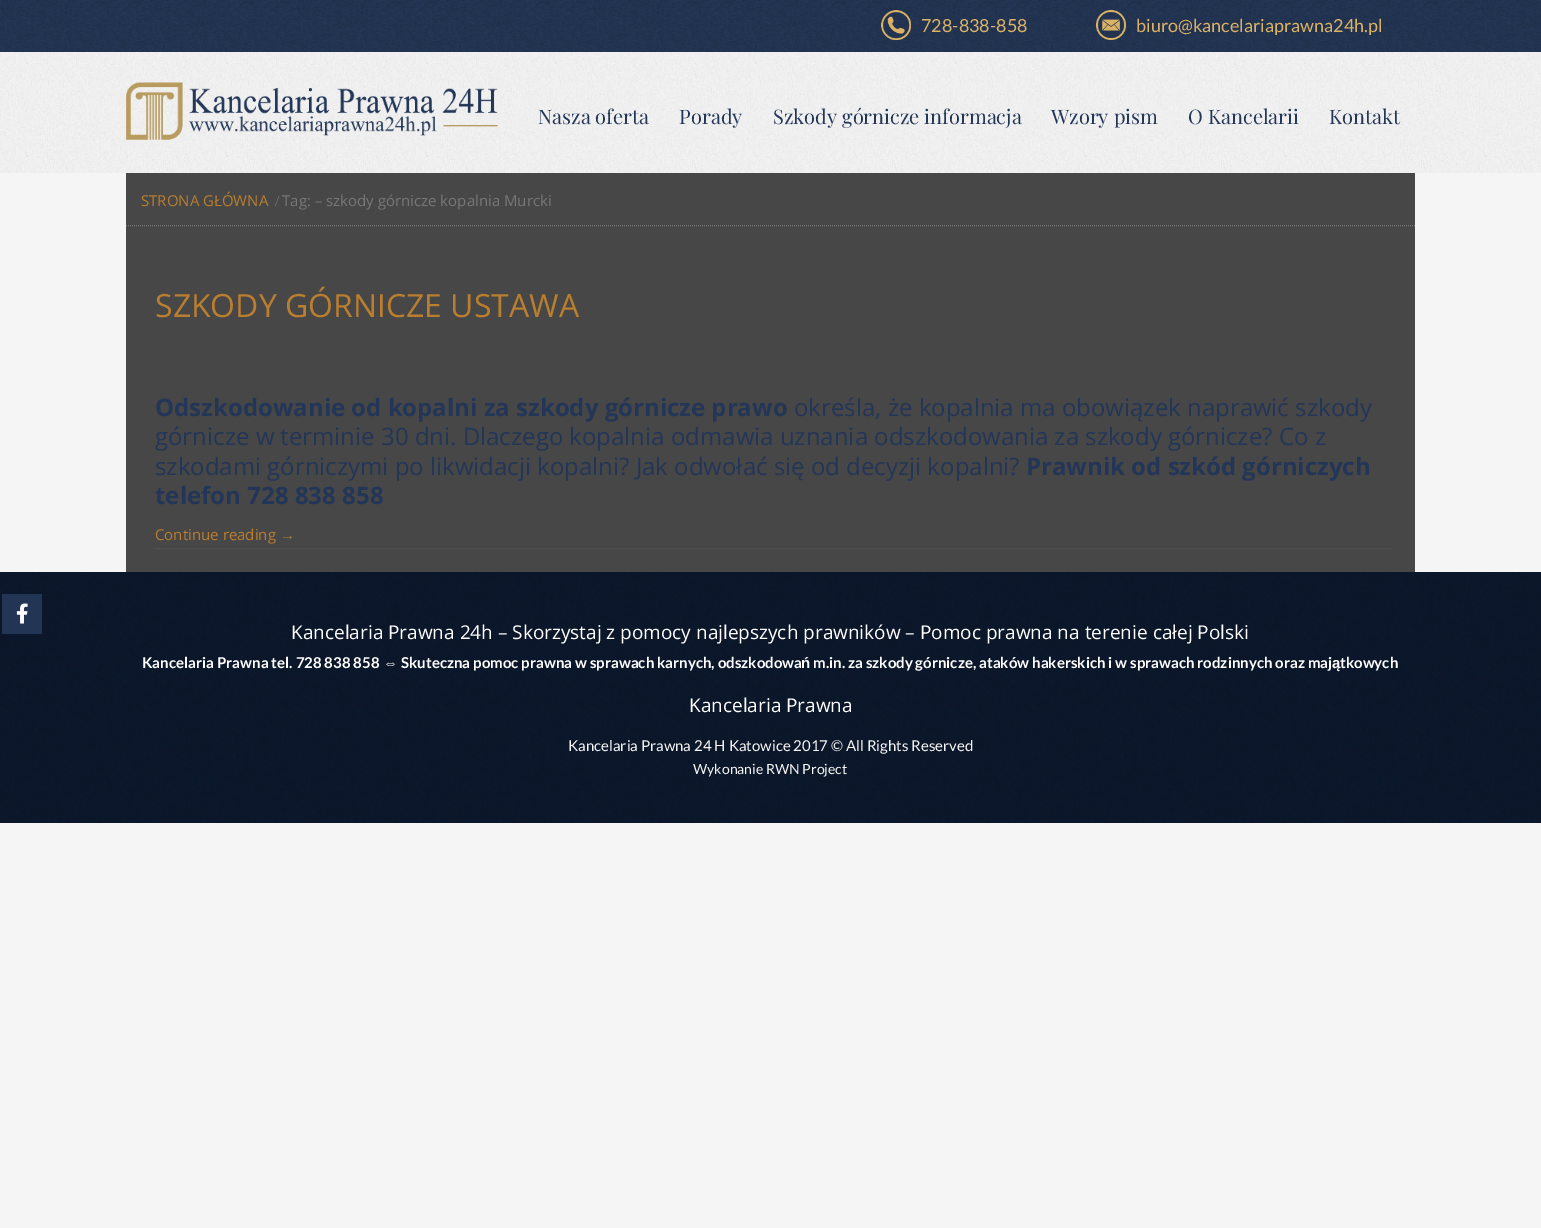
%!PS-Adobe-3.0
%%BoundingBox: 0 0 1541 1228
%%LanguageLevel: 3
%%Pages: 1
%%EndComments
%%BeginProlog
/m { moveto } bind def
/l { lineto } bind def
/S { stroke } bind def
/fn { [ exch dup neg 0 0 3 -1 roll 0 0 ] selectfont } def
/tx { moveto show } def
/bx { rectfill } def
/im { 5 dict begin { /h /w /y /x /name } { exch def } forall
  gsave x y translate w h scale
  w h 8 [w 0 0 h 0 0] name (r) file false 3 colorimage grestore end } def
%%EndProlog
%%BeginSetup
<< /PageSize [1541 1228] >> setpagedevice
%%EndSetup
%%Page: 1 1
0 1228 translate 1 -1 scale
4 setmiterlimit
0.961 setgray
0 0 1541 1228 bx
(image0.raw) 0 0 1541 52 im
(image1.raw) 881 10 30 30 im
/Lato-Regular 18 fn
0.859 0.698 0.4 setrgbcolor
(728-838-858) 921 32 tx
(image2.raw) 1096 10 30 30 im
(biuro@kancelariaprawna24h.pl) 1136 32 tx
(image3.raw) 0 52 1541 121 im
(image4.raw) 126 82 372 58 im
/PlayfairDisplay-Regular 20 fn
0.137 0.212 0.341 setrgbcolor
(Nasza oferta) 538 124 tx
(Porady) 679 124 tx
(Szkody górnicze informacja) 773 124 tx
(Wzory pism) 1051 124 tx
(O Kancelarii) 1188 124 tx
(Kontakt) 1329 124 tx
0.278 setgray
126 173 1289 399 bx
0.467 setgray
[1 1] 0 setdash
126 225.5 m 1415 225.5 l S
/OpenSans-Regular 15 fn
0.729 0.494 0.184 setrgbcolor
(STRONA GŁÓWNA) 141 206 tx
/LiberationSerif-Regular 15 fn
0.467 setgray
(/) 275 206 tx
/OpenSans-Regular 15 fn
(Tag: – szkody górnicze kopalnia Murcki) 282 206 tx
/OpenSans-Regular 32 fn
0.729 0.494 0.184 setrgbcolor
(SZKODY GÓRNICZE USTAWA) 155 317 tx
0.333 setgray
155 548.5 m 1393 548.5 l S
/OpenSans-Bold 24 fn
0.137 0.212 0.341 setrgbcolor
(Odszkodowanie od kopalni za szkody górnicze prawo) 155 416 tx
/OpenSans-Regular 24 fn
(określa, że kopalnia ma obowiązek naprawić szkody) 794 416 tx
(górnicze w terminie 30 dni. Dlaczego kopalnia odmawia uznania odszkodowania za szkody górnicze? Co z) 155 445 tx
(szkodami górniczymi po likwidacji kopalni? Jak odwołać się od decyzji kopalni?) 155 475 tx
/OpenSans-Bold 24 fn
(Prawnik od szkód górniczych) 1026 475 tx
(telefon 728 838 858) 155 504 tx
/OpenSans-Regular 15 fn
0.729 0.494 0.184 setrgbcolor
(Continue reading) 155 540 tx
/LiberationSerif-Regular 15 fn
(→) 280 540 tx
(image6.raw) 0 572 1541 251 im
0.133 0.208 0.333 setrgbcolor
2 594 40 40 bx
(image5.raw) 16 603 12 21 im
/OpenSans-Regular 19 fn
1 setgray
(Kancelaria Prawna 24h – Skorzystaj z pomocy najlepszych prawników – Pomoc prawna na terenie całej Polski) 291 639 tx
/Lato-Bold 15 fn
(Kancelaria Prawna tel. 728 838 858) 142 668 tx
/LiberationSans-Bold 15 fn
(⇔) 383 668 tx
/Lato-Bold 15 fn
(Skuteczna pomoc prawna w sprawach karnych, odszkodowa) 401 668 tx
/LiberationSans-Bold 15 fn
(ń) 801 668 tx
/Lato-Bold 15 fn
(m.in. za szkody górnicze, ataków hakerskich i w sprawach rodzinnych oraz maj) 813 668 tx
/LiberationSans-Bold 15 fn
(ą) 1332 668 tx
/Lato-Bold 15 fn
(tkowych) 1340 668 tx
/OpenSans-Regular 19 fn
(Kancelaria Prawna) 689 712 tx
/Lato-Regular 15 fn
0.961 setgray
(Kancelaria Prawna 24 H Katowice 2017 © All Rights Reserved) 568 751 tx
/Lato-Regular 14 fn
(Wykonanie RWN Project) 693 774 tx
showpage
%%EOF
